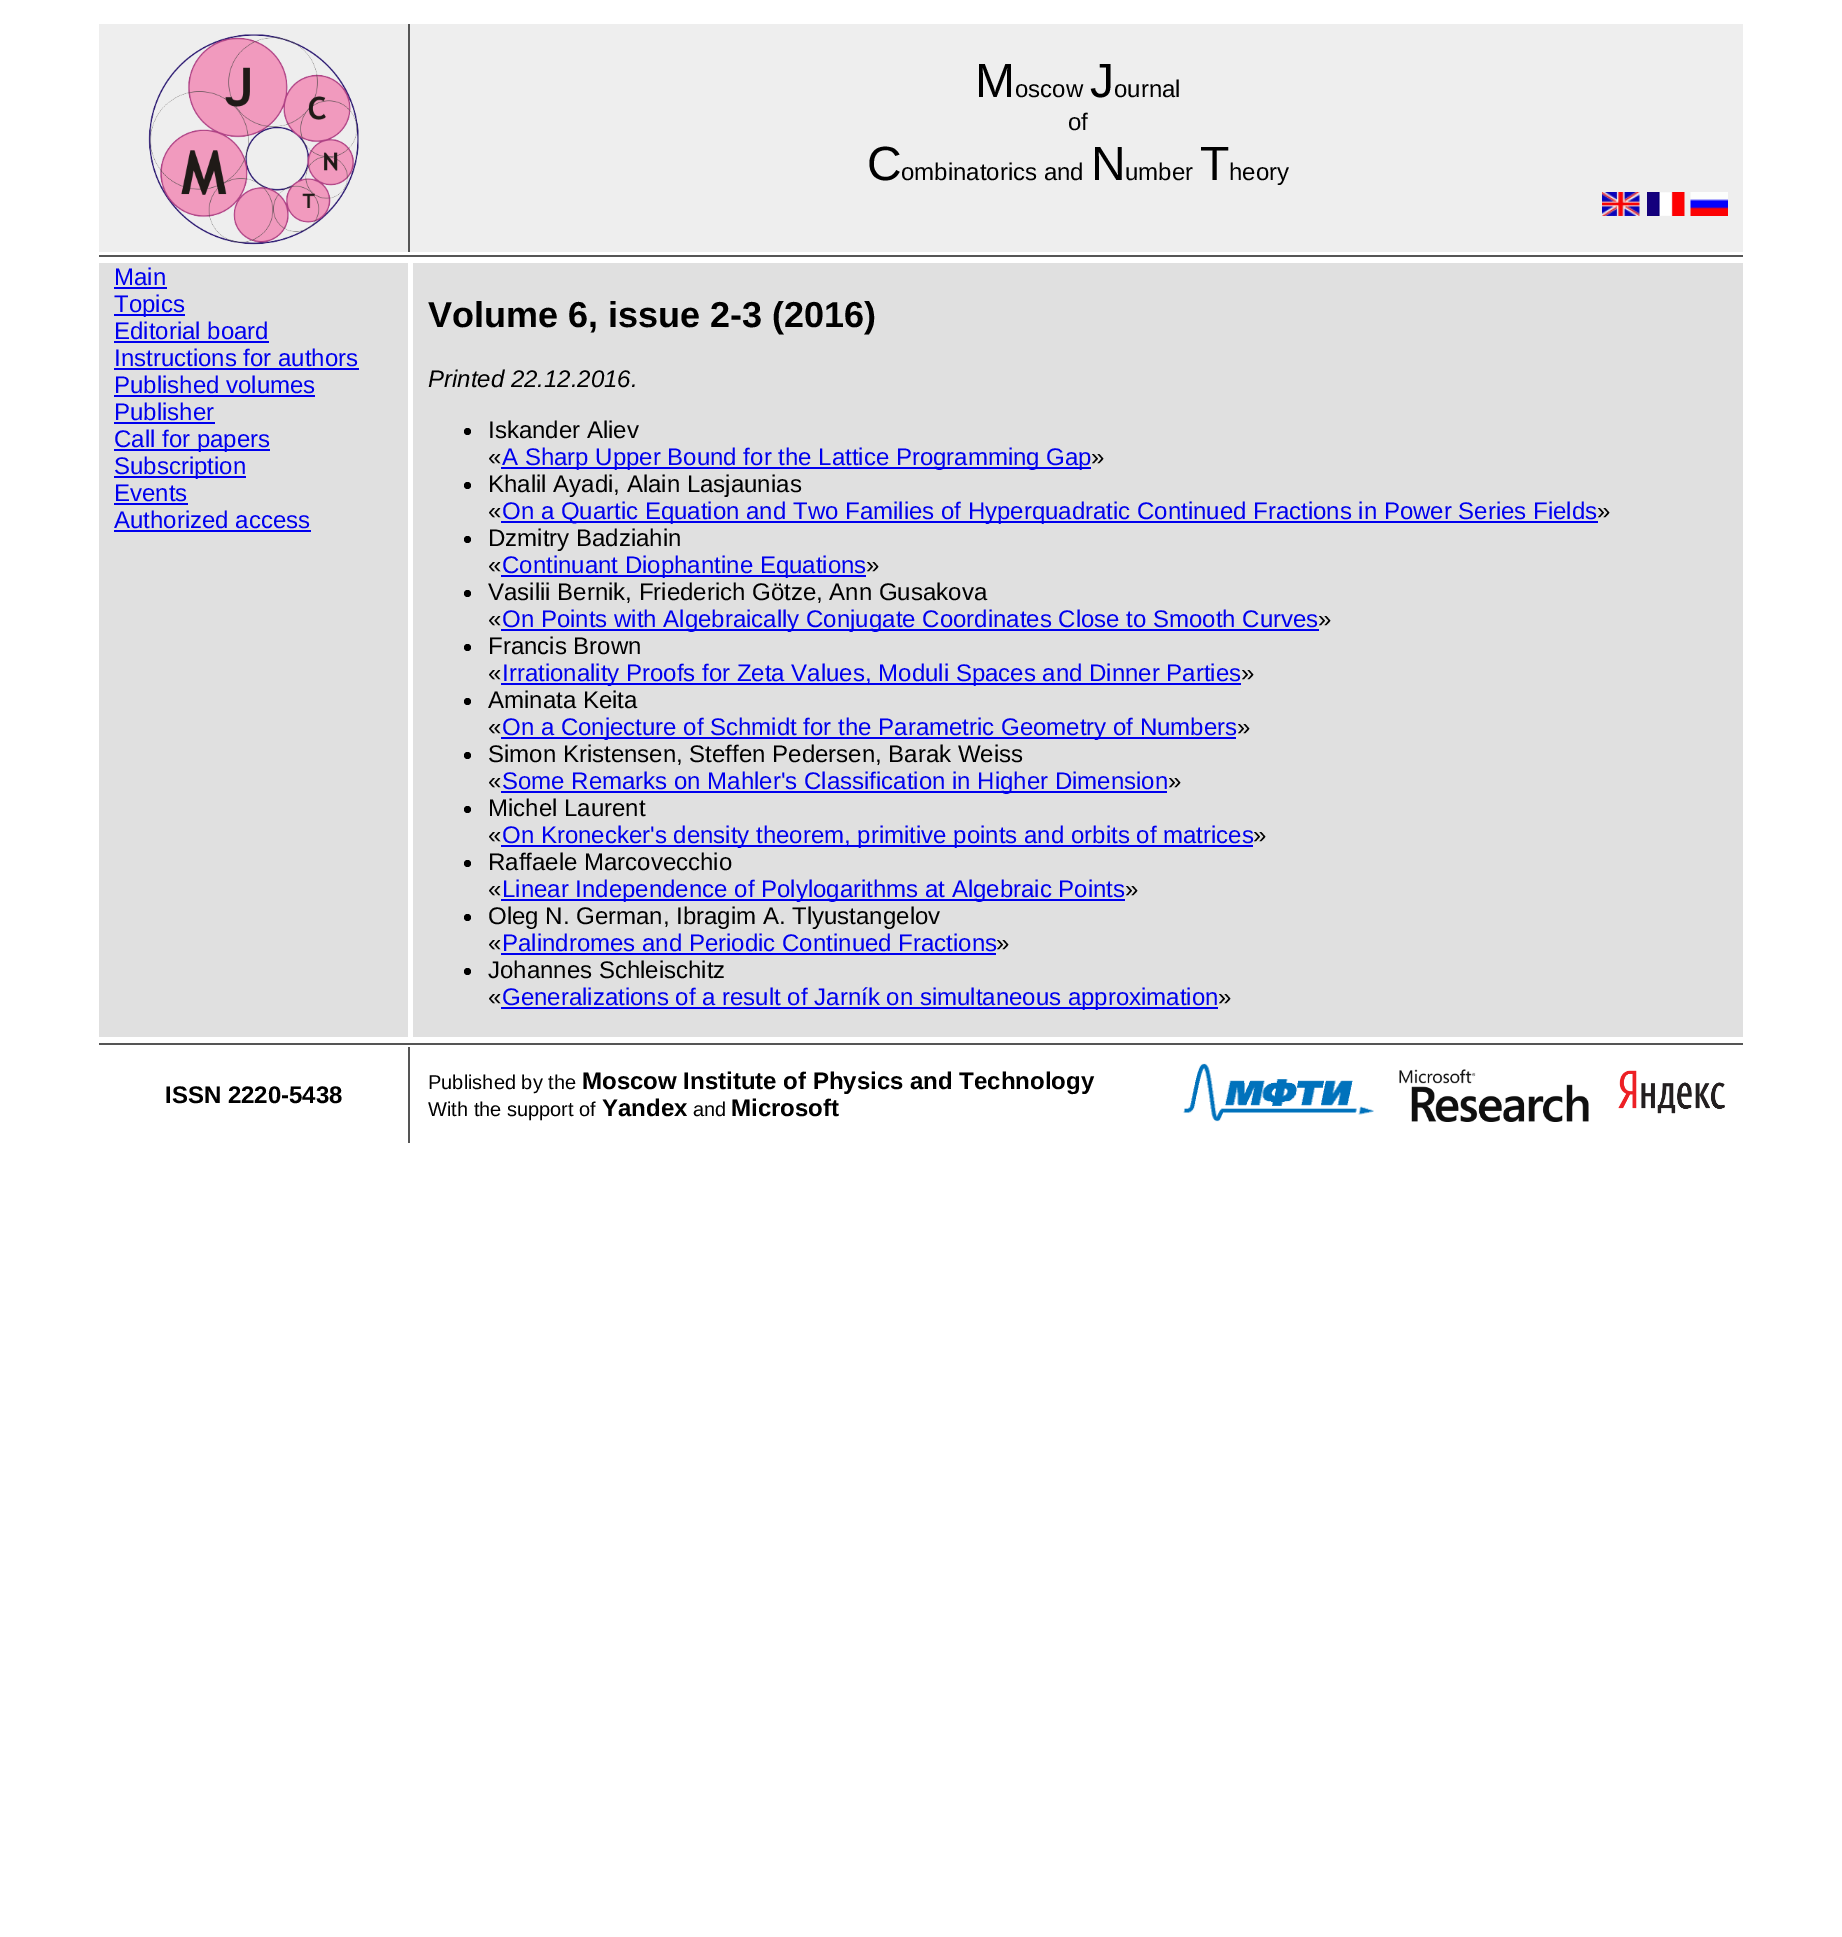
%!PS-Adobe-3.0
%%BoundingBox: 0 0 1842 1937
%%LanguageLevel: 3
%%Pages: 1
%%EndComments
%%BeginProlog
/f { fill } bind def
/fn { [ exch dup neg 0 0 3 -1 roll 0 0 ] selectfont } def
/tx { moveto show } def
/bx { rectfill } def
/ci { newpath 0 360 arc closepath } def
/im { 5 dict begin { /h /w /y /x /name } { exch def } forall
  gsave x y translate w h scale
  w h 8 [w 0 0 h 0 0] name (r) file false 3 colorimage grestore end } def
%%EndProlog
%%BeginSetup
<< /PageSize [1842 1937] >> setpagedevice
%%EndSetup
%%Page: 1 1
0 1937 translate 1 -1 scale
4 setmiterlimit
1 setgray
0 0 1842 1937 bx
0.933 setgray
99 24 1644 228 bx
0.333 setgray
408 24 2 228 bx
(image0.raw) 148 34 211 211 im
/LiberationSans-Regular 48 fn
0 setgray
(M) 975 97 tx
/LiberationSans-Regular 24 fn
(oscow) 1015 97 tx
/LiberationSans-Regular 48 fn
(J) 1090 97 tx
/LiberationSans-Regular 24 fn
(ournal) 1114 97 tx
(of) 1068 130 tx
/LiberationSans-Regular 48 fn
(C) 867 180 tx
/LiberationSans-Regular 24 fn
(ombinatorics and) 901 180 tx
/LiberationSans-Regular 48 fn
(N) 1091 180 tx
/LiberationSans-Regular 24 fn
(umber) 1125 180 tx
/LiberationSans-Regular 48 fn
(T) 1200 180 tx
/LiberationSans-Regular 24 fn
(heory) 1229 180 tx
(image1.raw) 1602 192 38 24 im
(image2.raw) 1647 192 38 24 im
(image3.raw) 1690 192 38 24 im
0.333 setgray
99 255 1644 2 bx
0.878 setgray
99 263 309 774 bx
0 0 0.933 setrgbcolor
(Main) 114 285 tx
114 287 53 2 bx
114 314 71 2 bx
(Topics) 114 312 tx
(Editorial board) 114 339 tx
114 341 155 2 bx
(Instructions for authors) 114 366 tx
114 368 245 2 bx
(Published volumes) 114 393 tx
114 395 201 2 bx
(Publisher) 114 420 tx
114 422 101 2 bx
114 449 156 2 bx
(Call for papers) 114 447 tx
114 476 132 2 bx
(Subscription) 114 474 tx
(Events) 114 501 tx
114 503 74 2 bx
(Authorized access) 114 528 tx
114 530 197 2 bx
0.878 setgray
413 263 1330 774 bx
/LiberationSans-Bold 36 fn
0 setgray
(Volume 6, issue 2-3 \(2016\)) 428 327 tx
/LiberationSans-Italic 24 fn
(Printed 22.12.2016.) 428 387 tx
467.5 431.5 3.5 ci f
/LiberationSans-Regular 24 fn
(Iskander Aliev) 488 438 tx
(«) 488 465 tx
0 0 0.933 setrgbcolor
501 467 590 2 bx
(A Sharp Upper Bound for the Lattice Programming Gap) 502 465 tx
0 setgray
(») 1091 465 tx
467.5 485.5 3.5 ci f
(Khalil Ayadi, Alain Lasjaunias) 488 492 tx
(«) 488 519 tx
0 0 0.933 setrgbcolor
501 521 1097 2 bx
(On a Quartic Equation and Two Families of Hyperquadratic Continued Fractions in Power Series Fields) 502 519 tx
0 setgray
(») 1597 519 tx
467.5 539.5 3.5 ci f
(Dzmitry Badziahin) 488 546 tx
(«) 488 573 tx
0 0 0.933 setrgbcolor
501 575 365 2 bx
(Continuant Diophantine Equations) 502 573 tx
0 setgray
(») 866 573 tx
467.5 593.5 3.5 ci f
(Vasilii Bernik, Friederich Götze, Ann Gusakova) 488 600 tx
(«) 488 627 tx
0 0 0.933 setrgbcolor
501 629 818 2 bx
(On Points with Algebraically Conjugate Coordinates Close to Smooth Curves) 502 627 tx
0 setgray
(») 1318 627 tx
467.5 647.5 3.5 ci f
(Francis Brown) 488 654 tx
(«) 488 681 tx
0 0 0.933 setrgbcolor
501 683 740 2 bx
(Irrationality Proofs for Zeta Values, Moduli Spaces and Dinner Parties) 502 681 tx
0 setgray
(») 1241 681 tx
467.5 701.5 3.5 ci f
(Aminata Keita) 488 708 tx
(«) 488 735 tx
0 0 0.933 setrgbcolor
501 737 735 2 bx
(On a Conjecture of Schmidt for the Parametric Geometry of Numbers) 502 735 tx
0 setgray
(») 1237 735 tx
467.5 755.5 3.5 ci f
(Simon Kristensen, Steffen Pedersen, Barak Weiss) 488 762 tx
(«) 488 789 tx
0 0 0.933 setrgbcolor
501 791 666 2 bx
(Some Remarks on Mahler's Classification in Higher Dimension) 502 789 tx
0 setgray
(») 1168 789 tx
467.5 809.5 3.5 ci f
(Michel Laurent) 488 816 tx
(«) 488 843 tx
0 0 0.933 setrgbcolor
501 845 752 2 bx
(On Kronecker's density theorem, primitive points and orbits of matrices) 502 843 tx
0 setgray
(») 1253 843 tx
467.5 863.5 3.5 ci f
(Raffaele Marcovecchio) 488 870 tx
(«) 488 897 tx
0 0 0.933 setrgbcolor
501 899 624 2 bx
(Linear Independence of Polylogarithms at Algebraic Points) 502 897 tx
0 setgray
(») 1125 897 tx
467.5 917.5 3.5 ci f
(Oleg N. German, Ibragim A. Tlyustangelov) 488 924 tx
(«) 488 951 tx
0 0 0.933 setrgbcolor
(Palindromes and Periodic Continued Fractions) 502 951 tx
501 953 495 2 bx
0 setgray
(») 996 951 tx
467.5 971.5 3.5 ci f
(Johannes Schleischitz) 488 978 tx
(«) 488 1005 tx
0 0 0.933 setrgbcolor
501 1007 717 2 bx
(Generalizations of a result of Jarník on simultaneous approximation) 502 1005 tx
0 setgray
(») 1218 1005 tx
0.333 setgray
99 1043 1644 2 bx
408 1047 2 96 bx
/LiberationSans-Bold 24 fn
0 setgray
(ISSN 2220-5438) 165 1103 tx
/LiberationSans-Regular 20 fn
(Published by the) 428 1089 tx
/LiberationSans-Bold 24 fn
(Moscow Institute of Physics and Technology) 582 1089 tx
/LiberationSans-Regular 20 fn
(With the support of) 428 1116 tx
/LiberationSans-Bold 24 fn
(Yandex) 602 1116 tx
/LiberationSans-Regular 20 fn
(and) 693 1116 tx
/LiberationSans-Bold 24 fn
(Microsoft) 731 1116 tx
(image4.raw) 1183 1063 191 59 im
(image5.raw) 1399 1069 190 53 im
(image6.raw) 1618 1070 107 44 im
showpage
%%EOF
